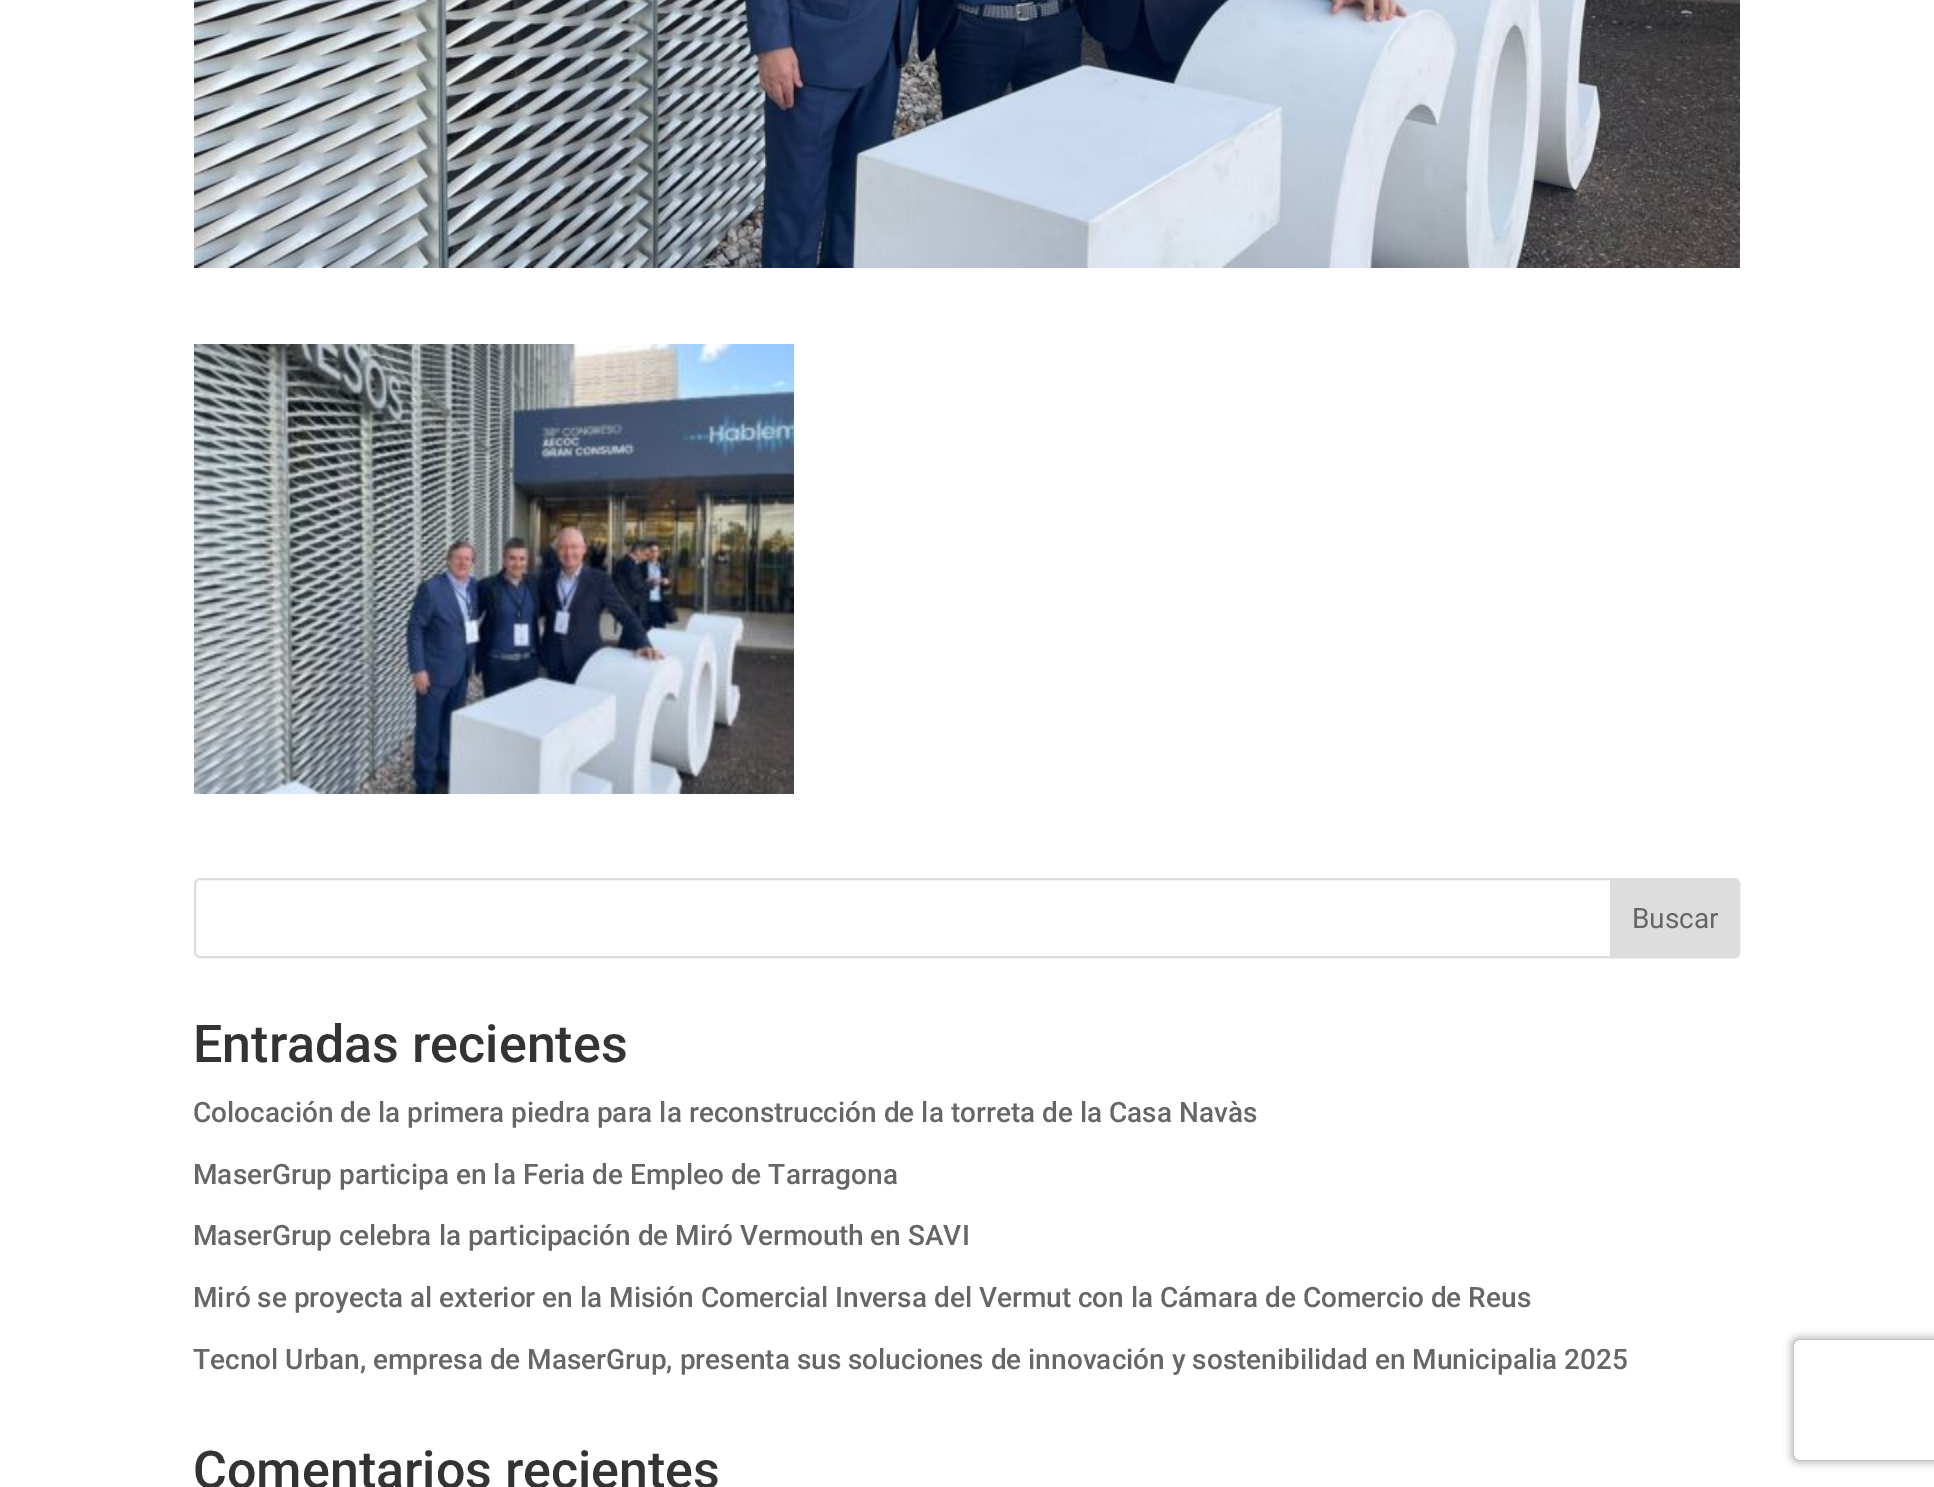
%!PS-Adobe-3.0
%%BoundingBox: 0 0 1934 1487
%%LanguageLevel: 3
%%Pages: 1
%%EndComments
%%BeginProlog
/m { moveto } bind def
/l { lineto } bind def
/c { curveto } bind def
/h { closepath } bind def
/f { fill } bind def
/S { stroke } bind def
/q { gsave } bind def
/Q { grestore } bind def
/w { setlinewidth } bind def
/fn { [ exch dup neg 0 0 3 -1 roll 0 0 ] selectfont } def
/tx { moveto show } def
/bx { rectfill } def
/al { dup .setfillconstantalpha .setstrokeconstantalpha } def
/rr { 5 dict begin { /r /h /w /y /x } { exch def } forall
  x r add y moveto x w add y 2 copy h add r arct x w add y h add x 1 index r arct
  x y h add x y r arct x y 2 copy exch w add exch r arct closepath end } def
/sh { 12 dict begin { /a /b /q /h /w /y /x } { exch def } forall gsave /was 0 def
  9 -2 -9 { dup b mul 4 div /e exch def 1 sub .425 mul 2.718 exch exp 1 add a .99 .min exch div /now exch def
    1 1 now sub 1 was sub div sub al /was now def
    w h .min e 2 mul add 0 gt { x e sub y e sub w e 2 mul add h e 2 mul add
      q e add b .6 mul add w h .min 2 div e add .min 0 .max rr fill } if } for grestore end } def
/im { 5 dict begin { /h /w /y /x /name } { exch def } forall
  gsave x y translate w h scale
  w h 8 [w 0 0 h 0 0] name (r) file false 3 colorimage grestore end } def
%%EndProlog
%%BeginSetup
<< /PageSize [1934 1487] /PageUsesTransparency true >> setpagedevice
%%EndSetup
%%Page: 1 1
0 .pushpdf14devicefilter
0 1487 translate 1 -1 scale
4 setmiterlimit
1 setgray
0 0 1934 1487 bx
(image0.raw) 194 0 1546 268 im
(image1.raw) 194 344 600 450 im
0.867 setgray
2 w
195 879 1544 78 5 rr S
1611 879 m 1734 879 l 1737 879 1739 881 1739 884 c 1739 952 l 1739 955 1737 957 1734 957 c 1611 957 l h q f Q
S
/Roboto-Regular 28 fn
0.4 setgray
(Buscar) 1632 928 tx
/Roboto-Medium 52 fn
0.2 setgray
(Entradas recientes) 193 1062 tx
/Roboto-Medium 28 fn
0.4 setgray
(Colocación de la primera piedra para la reconstrucción de la torreta de la Casa Navàs) 193 1122 tx
(MaserGrup participa en la Feria de Empleo de Tarragona) 193 1184 tx
(MaserGrup celebra la participación de Miró Vermouth en SAVI) 193 1245 tx
(Miró se proyecta al exterior en la Misión Comercial Inversa del Vermut con la Cámara de Comercio de Reus) 193 1307 tx
(Tecnol Urban, empresa de MaserGrup, presenta sus soluciones de innovación y sostenibilidad en Municipalia 2025) 193 1369 tx
/Roboto-Medium 52 fn
0.2 setgray
(Comentarios recientes) 193 1488 tx
q
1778 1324 m 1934 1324 l 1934 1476 l 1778 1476 l h 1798 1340 m 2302 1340 l 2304 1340 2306 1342 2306 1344 c 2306 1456 l 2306 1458 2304 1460 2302 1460 c 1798 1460 l 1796 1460 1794 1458 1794 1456 c 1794 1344 l 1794 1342 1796 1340 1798 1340 c h eoclip newpath
0.502 setgray
1794 1340 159 120 4 5 1 sh
Q
.poppdf14devicefilter showpage
%%EOF
